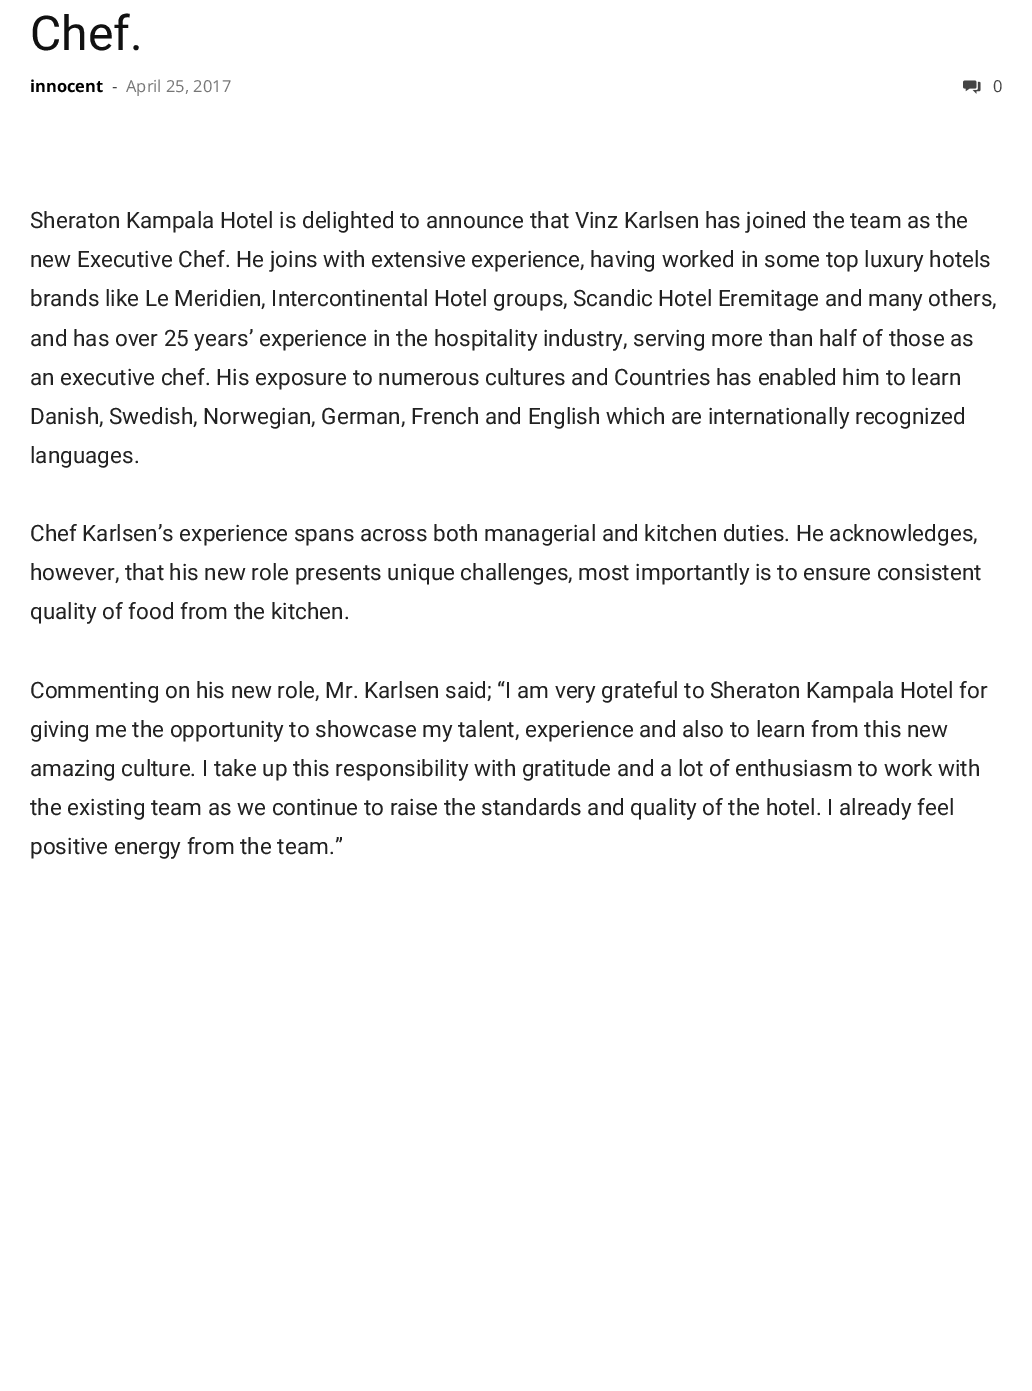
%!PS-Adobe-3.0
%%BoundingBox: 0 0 1032 1391
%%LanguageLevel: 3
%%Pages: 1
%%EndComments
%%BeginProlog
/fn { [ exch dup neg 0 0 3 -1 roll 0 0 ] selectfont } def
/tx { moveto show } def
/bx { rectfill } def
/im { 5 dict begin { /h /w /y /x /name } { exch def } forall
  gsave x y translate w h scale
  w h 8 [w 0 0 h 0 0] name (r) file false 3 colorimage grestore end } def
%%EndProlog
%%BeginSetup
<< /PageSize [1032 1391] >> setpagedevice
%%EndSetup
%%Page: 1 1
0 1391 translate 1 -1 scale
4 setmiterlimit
1 setgray
0 0 1032 1391 bx
/Roboto-Regular 48 fn
0.067 setgray
(Chef.) 30 50 tx
/OpenSans-Bold 16.5 fn
0 setgray
(innocent) 30 92 tx
/OpenSans-Regular 16.5 fn
0.267 setgray
(-) 112 92 tx
0.463 setgray
(April 25, 2017) 126 92 tx
(image0.raw) 963 80 18 14 im
0.267 setgray
(0) 993 92 tx
/Roboto-Regular 22.5 fn
0.133 setgray
(Sheraton Kampala Hotel is delighted to announce that Vinz Karlsen has joined the team as the) 30 228 tx
(new Executive Chef. He joins with extensive experience, having worked in some top luxury hotels) 30 267 tx
(brands like Le Meridien, Intercontinental Hotel groups, Scandic Hotel Eremitage and many others,) 30 306 tx
(and has over 25 years’ experience in the hospitality industry, serving more than half of those as) 30 346 tx
(an executive chef. His exposure to numerous cultures and Countries has enabled him to learn) 30 385 tx
(Danish, Swedish, Norwegian, German, French and English which are internationally recognized) 30 424 tx
(languages.) 30 463 tx
(Chef Karlsen’s experience spans across both managerial and kitchen duties. He acknowledges,) 30 541 tx
(however, that his new role presents unique challenges, most importantly is to ensure consistent) 30 580 tx
(quality of food from the kitchen.) 30 619 tx
(Commenting on his new role, Mr. Karlsen said; “I am very grateful to Sheraton Kampala Hotel for) 30 698 tx
(giving me the opportunity to showcase my talent, experience and also to learn from this new) 30 737 tx
(amazing culture. I take up this responsibility with gratitude and a lot of enthusiasm to work with) 30 776 tx
(the existing team as we continue to raise the standards and quality of the hotel. I already feel) 30 815 tx
(positive energy from the team.”) 30 854 tx
showpage
%%EOF
